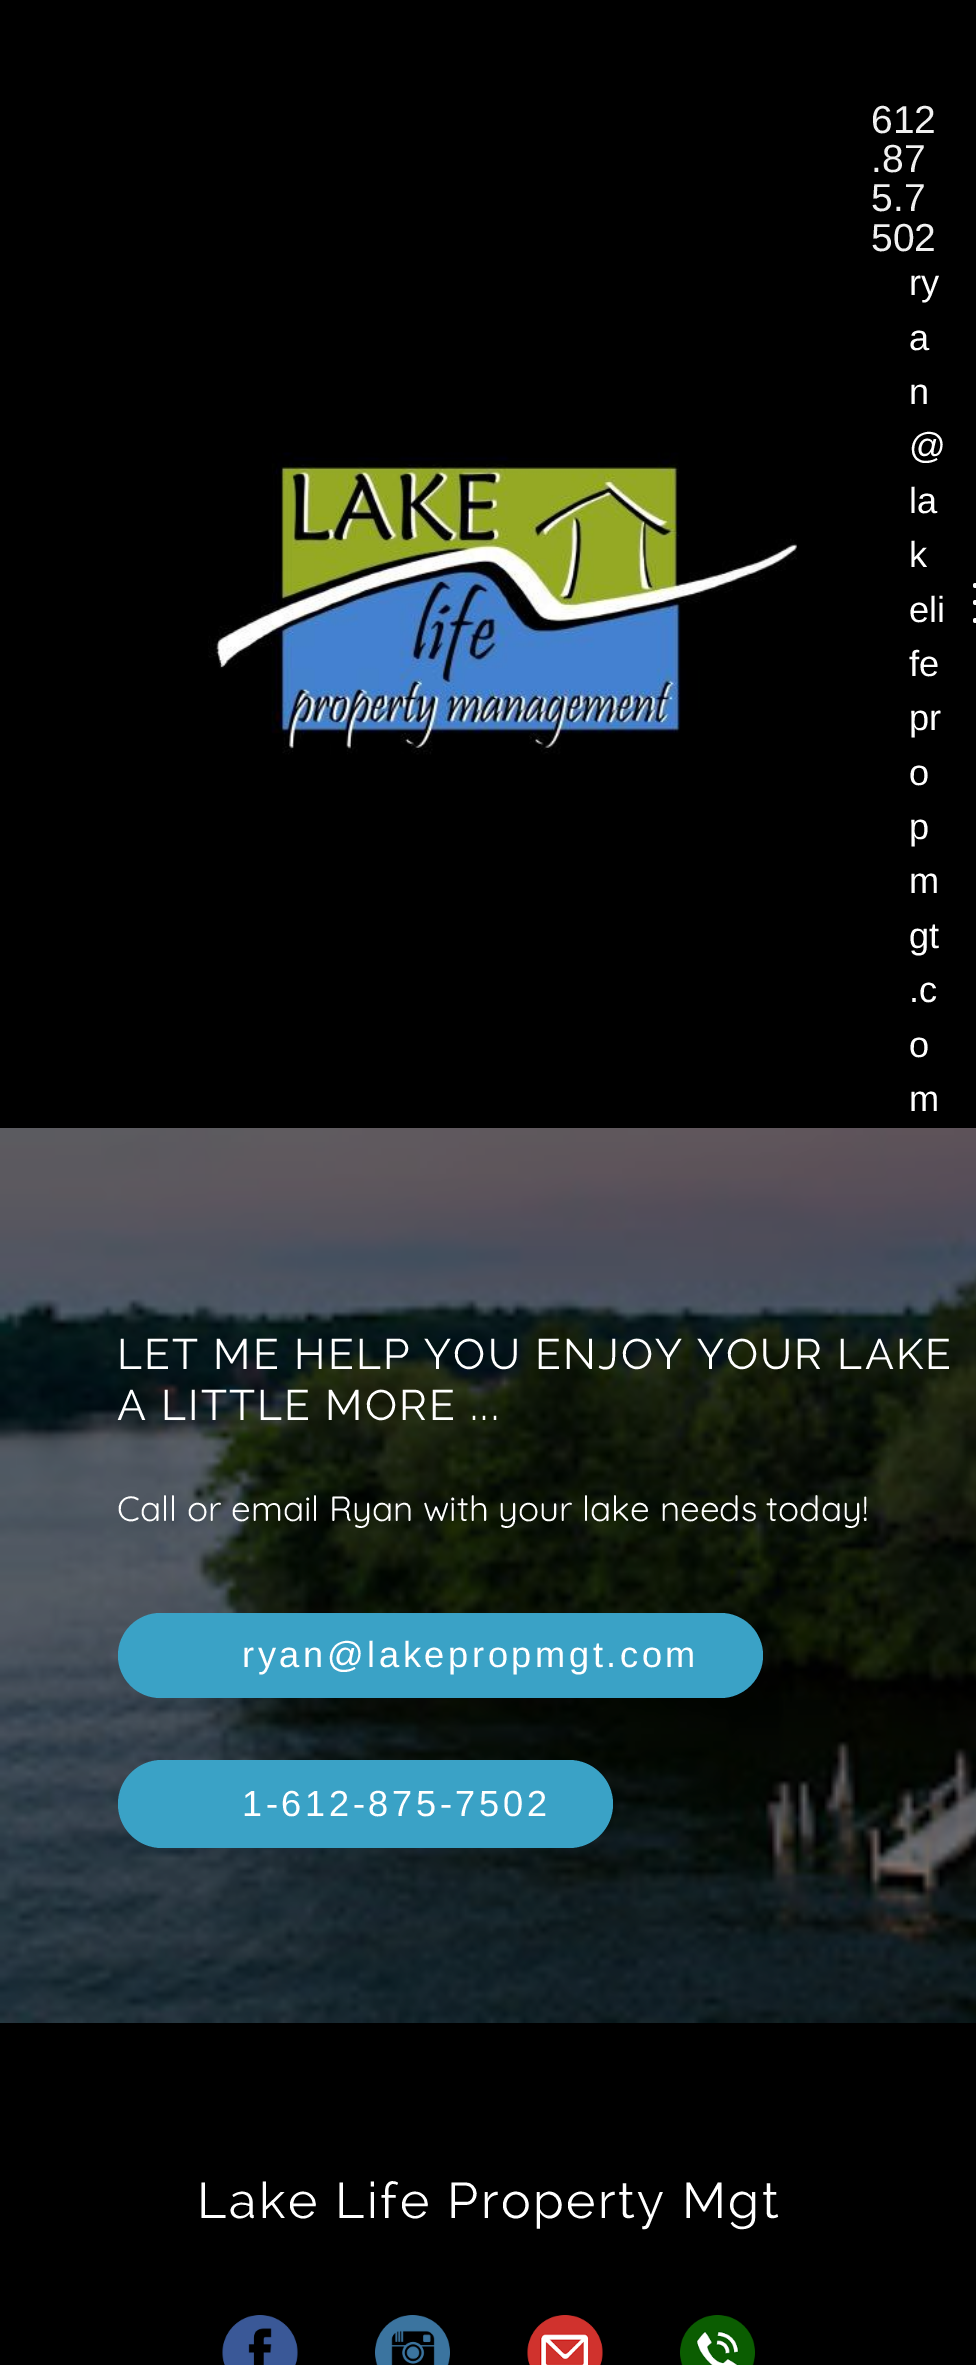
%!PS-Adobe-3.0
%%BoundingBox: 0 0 976 2365
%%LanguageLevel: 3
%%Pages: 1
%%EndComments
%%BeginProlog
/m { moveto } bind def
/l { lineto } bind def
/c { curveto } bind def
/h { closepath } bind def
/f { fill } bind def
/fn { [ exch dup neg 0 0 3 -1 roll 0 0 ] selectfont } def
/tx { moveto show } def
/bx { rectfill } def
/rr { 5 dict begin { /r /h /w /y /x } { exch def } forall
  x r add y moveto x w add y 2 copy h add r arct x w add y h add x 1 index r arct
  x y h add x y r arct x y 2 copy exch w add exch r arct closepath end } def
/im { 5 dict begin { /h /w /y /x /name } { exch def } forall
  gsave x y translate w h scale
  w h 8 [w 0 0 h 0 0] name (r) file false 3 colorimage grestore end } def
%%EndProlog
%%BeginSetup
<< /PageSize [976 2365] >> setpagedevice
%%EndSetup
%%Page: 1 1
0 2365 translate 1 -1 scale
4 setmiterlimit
1 setgray
0 0 976 2365 bx
0 setgray
0 0 976 1128 bx
(image0.raw) 208 452 589 303 im
/LiberationSans-Regular 39 fn
0.945 setgray
(612) 871 133 tx
(.87) 871 172 tx
(5.7) 871 211 tx
(502) 871 251 tx
/LiberationSans-Regular 36.25 fn
1 setgray
(ry) 909 295 tx
(a) 909 350 tx
(n) 909 404 tx
(@) 909 458 tx
(la) 909 513 tx
(k) 909 567 tx
(eli) 909 622 tx
(fe) 909 676 tx
(pr) 909 730 tx
(o) 909 785 tx
(p) 909 839 tx
(m) 909 893 tx
(gt) 909 948 tx
(.c) 909 1002 tx
(o) 909 1057 tx
(m) 909 1111 tx
975.5 600 m 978 600 l 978 605 l 975.5 605 l 974 605 973 604 973 602.5 c 973 601 974 600 975.5 600 c h f
975.5 583 m 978 583 l 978 588 l 975.5 588 l 974 588 973 587 973 585.5 c 973 584 974 583 975.5 583 c h f
975.5 618 m 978 618 l 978 623 l 975.5 623 l 974 623 973 622 973 620.5 c 973 619 974 618 975.5 618 c h f
(image1.raw) 0 1128 976 895 im
/Raleway-Regular 42.5 fn
117 1369 m 2.1 0 (LET ME HELP YOU ENJOY YOUR LAKE) ashow
117 1420 m 2.1 0 (A LITTLE MORE ...) ashow
/Quicksand-Regular 35 fn
(Call or email Ryan with your lake needs today!) 117 1521 tx
0.227 0.635 0.776 setrgbcolor
118 1613 645 85 42.5 rr f
/LiberationSans-Regular 36.25 fn
1 setgray
242 1667 m 3.6 0 (ryan@lakepropmgt.com) ashow
0.227 0.635 0.776 setrgbcolor
118 1760 495 88 44 rr f
1 setgray
242 1816 m 3.6 0 (1-612-875-7502) ashow
0 setgray
0 2023 976 342 bx
/Raleway-Regular 50 fn
1 setgray
197 2218 m 2.5 0 (Lake Life Property Mgt) ashow
(image2.raw) 222 2315 76 50 im
(image3.raw) 375 2315 75 50 im
(image4.raw) 527 2315 76 50 im
(image5.raw) 680 2315 75 50 im
showpage
%%EOF
